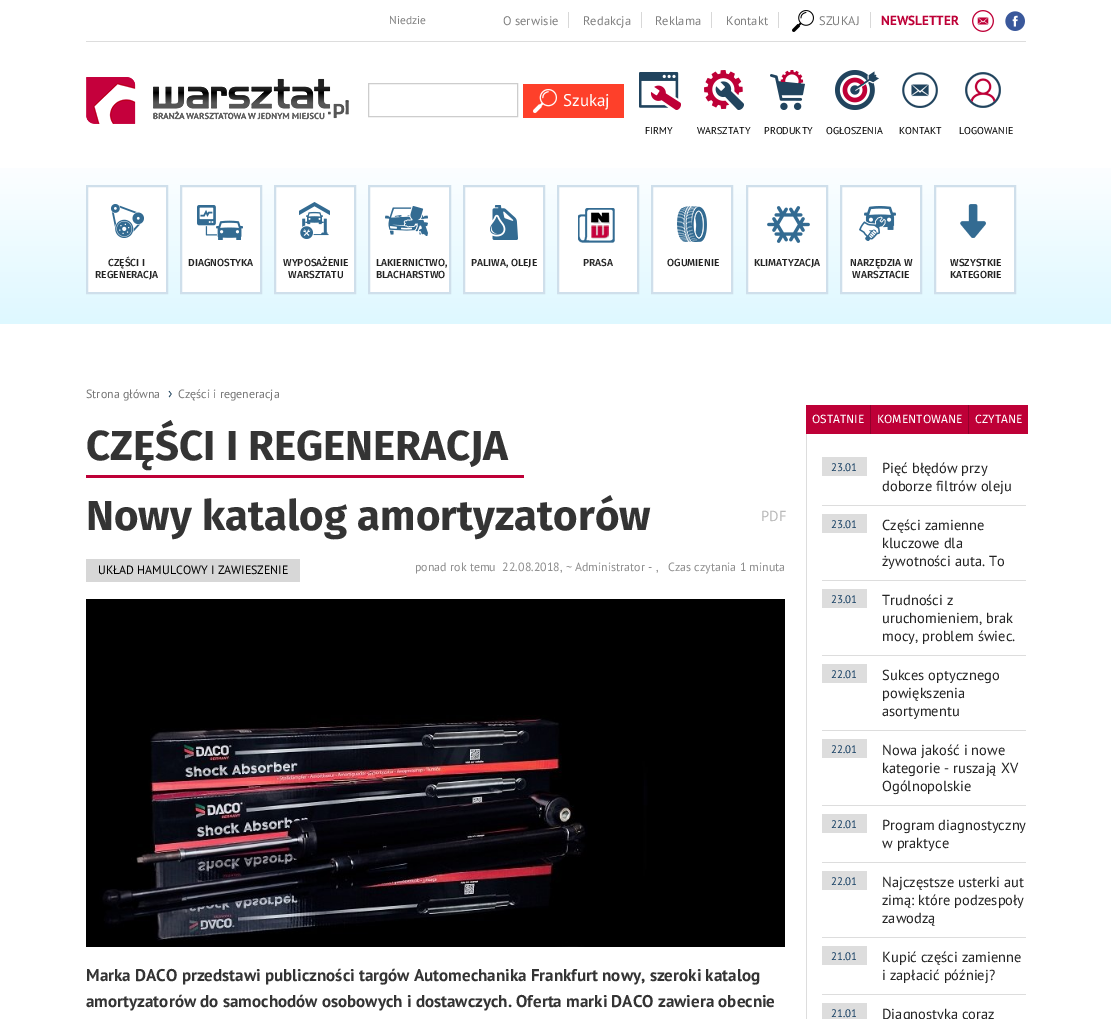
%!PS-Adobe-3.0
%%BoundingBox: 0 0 1111 1019
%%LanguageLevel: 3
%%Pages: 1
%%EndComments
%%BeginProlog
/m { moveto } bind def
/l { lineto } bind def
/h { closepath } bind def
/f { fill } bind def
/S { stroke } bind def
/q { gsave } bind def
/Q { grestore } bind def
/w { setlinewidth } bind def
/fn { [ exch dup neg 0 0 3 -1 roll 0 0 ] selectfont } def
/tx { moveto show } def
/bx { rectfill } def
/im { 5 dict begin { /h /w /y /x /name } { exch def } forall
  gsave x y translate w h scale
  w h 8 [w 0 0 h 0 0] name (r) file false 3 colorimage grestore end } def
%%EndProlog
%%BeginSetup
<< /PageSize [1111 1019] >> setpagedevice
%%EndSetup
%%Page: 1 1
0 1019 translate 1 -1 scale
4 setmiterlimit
1 setgray
0 0 1111 1019 bx
0.867 setgray
86 41 940 1 bx
/PTSans-Regular 11.5 fn
0.502 setgray
(Niedzie) 389 24 tx
/PTSans-Regular 12.5 fn
(O serwisie) 503 25 tx
0.847 setgray
568 12 1 16 bx
0.502 setgray
(Redakcja) 583 25 tx
0.847 setgray
641 12 1 16 bx
0.502 setgray
(Reklama) 655 25 tx
0.847 setgray
711 12 1 16 bx
0.502 setgray
(Kontakt) 726 25 tx
0.847 setgray
778 12 1 16 bx
(image0.raw) 792 10 22 22 im
0.502 setgray
(SZUKAJ) 819 25 tx
0.847 setgray
870 12 1 16 bx
/PTSans-Bold 13.25 fn
0.745 0 0.216 setrgbcolor
(NEWSLETTER) 881 25 tx
(image1.raw) 972 10 22 22 im
(image2.raw) 1005 11 20 20 im
(image3.raw) 86 77 263 47 im
0.804 setgray
368.5 83.5 149 33 rectstroke
0.996 0.251 0.165 setrgbcolor
523 84 101 34 bx
(image4.raw) 533 89 24 24 im
/PTSans-Regular 17 fn
1 setgray
(Szukaj) 563 106 tx
(image5.raw) 639 72 42 38 im
/PTSans-Regular 10 fn
0 setgray
(FIRMY) 645 134 tx
(image6.raw) 704 70 40 40 im
(WARSZTATY) 697 134 tx
(image7.raw) 770 70 35 40 im
(PRODUKTY) 764 134 tx
(image8.raw) 835 70 44 40 im
(OGŁOSZENIA) 826 134 tx
(image9.raw) 902 72 36 36 im
(KONTAKT) 899 134 tx
(image10.raw) 965 72 36 36 im
(LOGOWANIE) 959 134 tx
q 0 168 m 1111 168 l 1111 324 l 0 324 l h clip newpath
<< /ShadingType 2 /ColorSpace /DeviceRGB /Coords [556 155 556 324] /Extend [true true] /Function << /FunctionType 2 /Domain [0 1] /C0 [1 1 1] /C1 [0.871 0.973 1] /N 1 >> >> shfill Q
1 setgray
87 186 m 167 186 l 167 293 l 87 293 l h q f Q
0.812 0.875 0.922 setrgbcolor
2 w
S
(image11.raw) 111 204 33 34 im
/FiraSans-Medium 10.25 fn
0.137 setgray
(CZĘŚCI I) 108 266 tx
(REGENERACJA) 95 278 tx
1 setgray
181 186 m 261 186 l 261 293 l 181 293 l h q f Q
0.812 0.875 0.922 setrgbcolor
S
(image12.raw) 197 205 46 35 im
0.137 setgray
(DIAGNOSTYKA) 188 266 tx
1 setgray
275 186 m 355 186 l 355 293 l 275 293 l h q f Q
0.812 0.875 0.922 setrgbcolor
S
(image13.raw) 299 202 31 37 im
0.137 setgray
(WYPOSAŻENIE) 283 266 tx
(WARSZTATU) 288 278 tx
1 setgray
369 186 m 450 186 l 450 293 l 369 293 l h q f Q
0.812 0.875 0.922 setrgbcolor
S
(image14.raw) 385 206 43 30 im
0.137 setgray
(LAKIERNICTWO,) 376 266 tx
(BLACHARSTWO) 376 278 tx
1 setgray
464 186 m 544 186 l 544 293 l 464 293 l h q f Q
0.812 0.875 0.922 setrgbcolor
S
(image15.raw) 490 205 28 35 im
0.137 setgray
(PALIWA, OLEJE) 471 266 tx
1 setgray
558 186 m 638 186 l 638 293 l 558 293 l h q f Q
0.812 0.875 0.922 setrgbcolor
S
(image16.raw) 578 208 37 35 im
0.137 setgray
(PRASA) 583 266 tx
1 setgray
652 186 m 732 186 l 732 293 l 652 293 l h q f Q
0.812 0.875 0.922 setrgbcolor
S
(image17.raw) 677 206 30 36 im
0.137 setgray
(OGUMIENIE) 667 266 tx
1 setgray
747 186 m 827 186 l 827 293 l 747 293 l h q f Q
0.812 0.875 0.922 setrgbcolor
S
(image18.raw) 767 206 43 37 im
0.137 setgray
(KLIMATYZACJA) 754 266 tx
1 setgray
841 186 m 921 186 l 921 293 l 841 293 l h q f Q
0.812 0.875 0.922 setrgbcolor
S
(image19.raw) 859 206 37 35 im
0.137 setgray
(NARZĘDZIA W) 850 266 tx
(WARSZTACIE) 852 278 tx
1 setgray
935 186 m 1015 186 l 1015 293 l 935 293 l h q f Q
0.812 0.875 0.922 setrgbcolor
S
(image20.raw) 960 204 26 34 im
0.137 setgray
(WSZYSTKIE) 950 266 tx
(KATEGORIE) 950 278 tx
/PTSans-Regular 12 fn
0.467 setgray
(Strona główna) 86 398 tx
/PTSans-Regular 15 fn
0.129 0.267 0.369 setrgbcolor
(›) 168 398 tx
/PTSans-Regular 12 fn
0.467 setgray
(Części i regeneracja) 178 398 tx
0.745 0 0.216 setrgbcolor
86 475 438 3 bx
/FiraSans-Bold 42 fn
0.204 setgray
(CZĘŚCI I REGENERACJA) 86 460 tx
(Nowy katalog amortyzatorów) 86 530 tx
/PTSans-Regular 14.5 fn
0.725 setgray
(PDF) 761 521 tx
0.843 setgray
86 559 214 23 bx
/PTSans-Regular 12 fn
0 setgray
(UKŁAD HAMULCOWY I ZAWIESZENIE) 98 574 tx
0.557 setgray
(ponad rok temu  22.08.2018, ~ Administrator - ,   Czas czytania 1 minuta) 415 571 tx
(image21.raw) 86 599 699 348 im
/PTSans-Bold 17 fn
0.204 setgray
(Marka DACO przedstawi publiczności targów Automechanika Frankfurt nowy, szeroki katalog) 86 981 tx
(amortyzatorów do samochodów osobowych i dostawczych. Oferta marki DACO zawiera obecnie) 86 1007 tx
0.745 0 0.216 setrgbcolor
806 405 64 29 bx
0.576 0 0.169 setrgbcolor
870 405 1 29 bx
/FiraSans-Regular 12 fn
1 setgray
(OSTATNIE) 812 423 tx
0.745 0 0.216 setrgbcolor
871 405 97 29 bx
0.576 0 0.169 setrgbcolor
968 405 1 29 bx
1 setgray
(KOMENTOWANE) 877 423 tx
0.745 0 0.216 setrgbcolor
969 405 59 29 bx
1 setgray
(CZYTANE) 975 423 tx
0.867 setgray
806 434 1 585 bx
822 457 45 19 bx
/PTSans-Regular 11 fn
0.067 0.231 0.376 setrgbcolor
(23.01) 831 471 tx
/PTSans-Regular 14.5 fn
0.137 setgray
(Pięć błędów przy) 882 473 tx
(doborze filtrów oleju) 882 491 tx
0.867 setgray
822 505 204 1 bx
822 514 45 19 bx
/PTSans-Regular 11 fn
0.067 0.231 0.376 setrgbcolor
(23.01) 831 528 tx
/PTSans-Regular 14.5 fn
0.137 setgray
(Części zamienne) 882 530 tx
(kluczowe dla) 882 548 tx
(żywotności auta. To) 882 566 tx
0.867 setgray
822 580 204 1 bx
822 589 45 19 bx
/PTSans-Regular 11 fn
0.067 0.231 0.376 setrgbcolor
(23.01) 831 603 tx
/PTSans-Regular 14.5 fn
0.137 setgray
(Trudności z) 882 605 tx
(uruchomieniem, brak) 882 623 tx
(mocy, problem świec.) 882 641 tx
0.867 setgray
822 655 204 1 bx
822 664 45 19 bx
/PTSans-Regular 11 fn
0.067 0.231 0.376 setrgbcolor
(22.01) 831 678 tx
/PTSans-Regular 14.5 fn
0.137 setgray
(Sukces optycznego) 882 680 tx
(powiększenia) 882 698 tx
(asortymentu) 882 716 tx
0.867 setgray
822 730 204 1 bx
822 739 45 19 bx
/PTSans-Regular 11 fn
0.067 0.231 0.376 setrgbcolor
(22.01) 831 753 tx
/PTSans-Regular 14.5 fn
0.137 setgray
(Nowa jakość i nowe) 882 755 tx
(kategorie - ruszają XV) 882 773 tx
(Ogólnopolskie) 882 791 tx
0.867 setgray
822 805 204 1 bx
822 814 45 19 bx
/PTSans-Regular 11 fn
0.067 0.231 0.376 setrgbcolor
(22.01) 831 828 tx
/PTSans-Regular 14.5 fn
0.137 setgray
(Program diagnostyczny) 882 830 tx
(w praktyce) 882 848 tx
0.867 setgray
822 862 204 1 bx
822 871 45 19 bx
/PTSans-Regular 11 fn
0.067 0.231 0.376 setrgbcolor
(22.01) 831 885 tx
/PTSans-Regular 14.5 fn
0.137 setgray
(Najczęstsze usterki aut) 882 887 tx
(zimą: które podzespoły) 882 905 tx
(zawodzą) 882 923 tx
0.867 setgray
822 937 204 1 bx
822 946 45 19 bx
/PTSans-Regular 11 fn
0.067 0.231 0.376 setrgbcolor
(21.01) 831 960 tx
/PTSans-Regular 14.5 fn
0.137 setgray
(Kupić części zamienne) 882 962 tx
(i zapłacić później?) 882 980 tx
0.867 setgray
822 994 204 1 bx
822 1003 45 16 bx
/PTSans-Regular 11 fn
0.067 0.231 0.376 setrgbcolor
(21.01) 831 1017 tx
/PTSans-Regular 14.5 fn
0.137 setgray
(Diagnostyka coraz) 882 1019 tx
showpage
%%EOF
